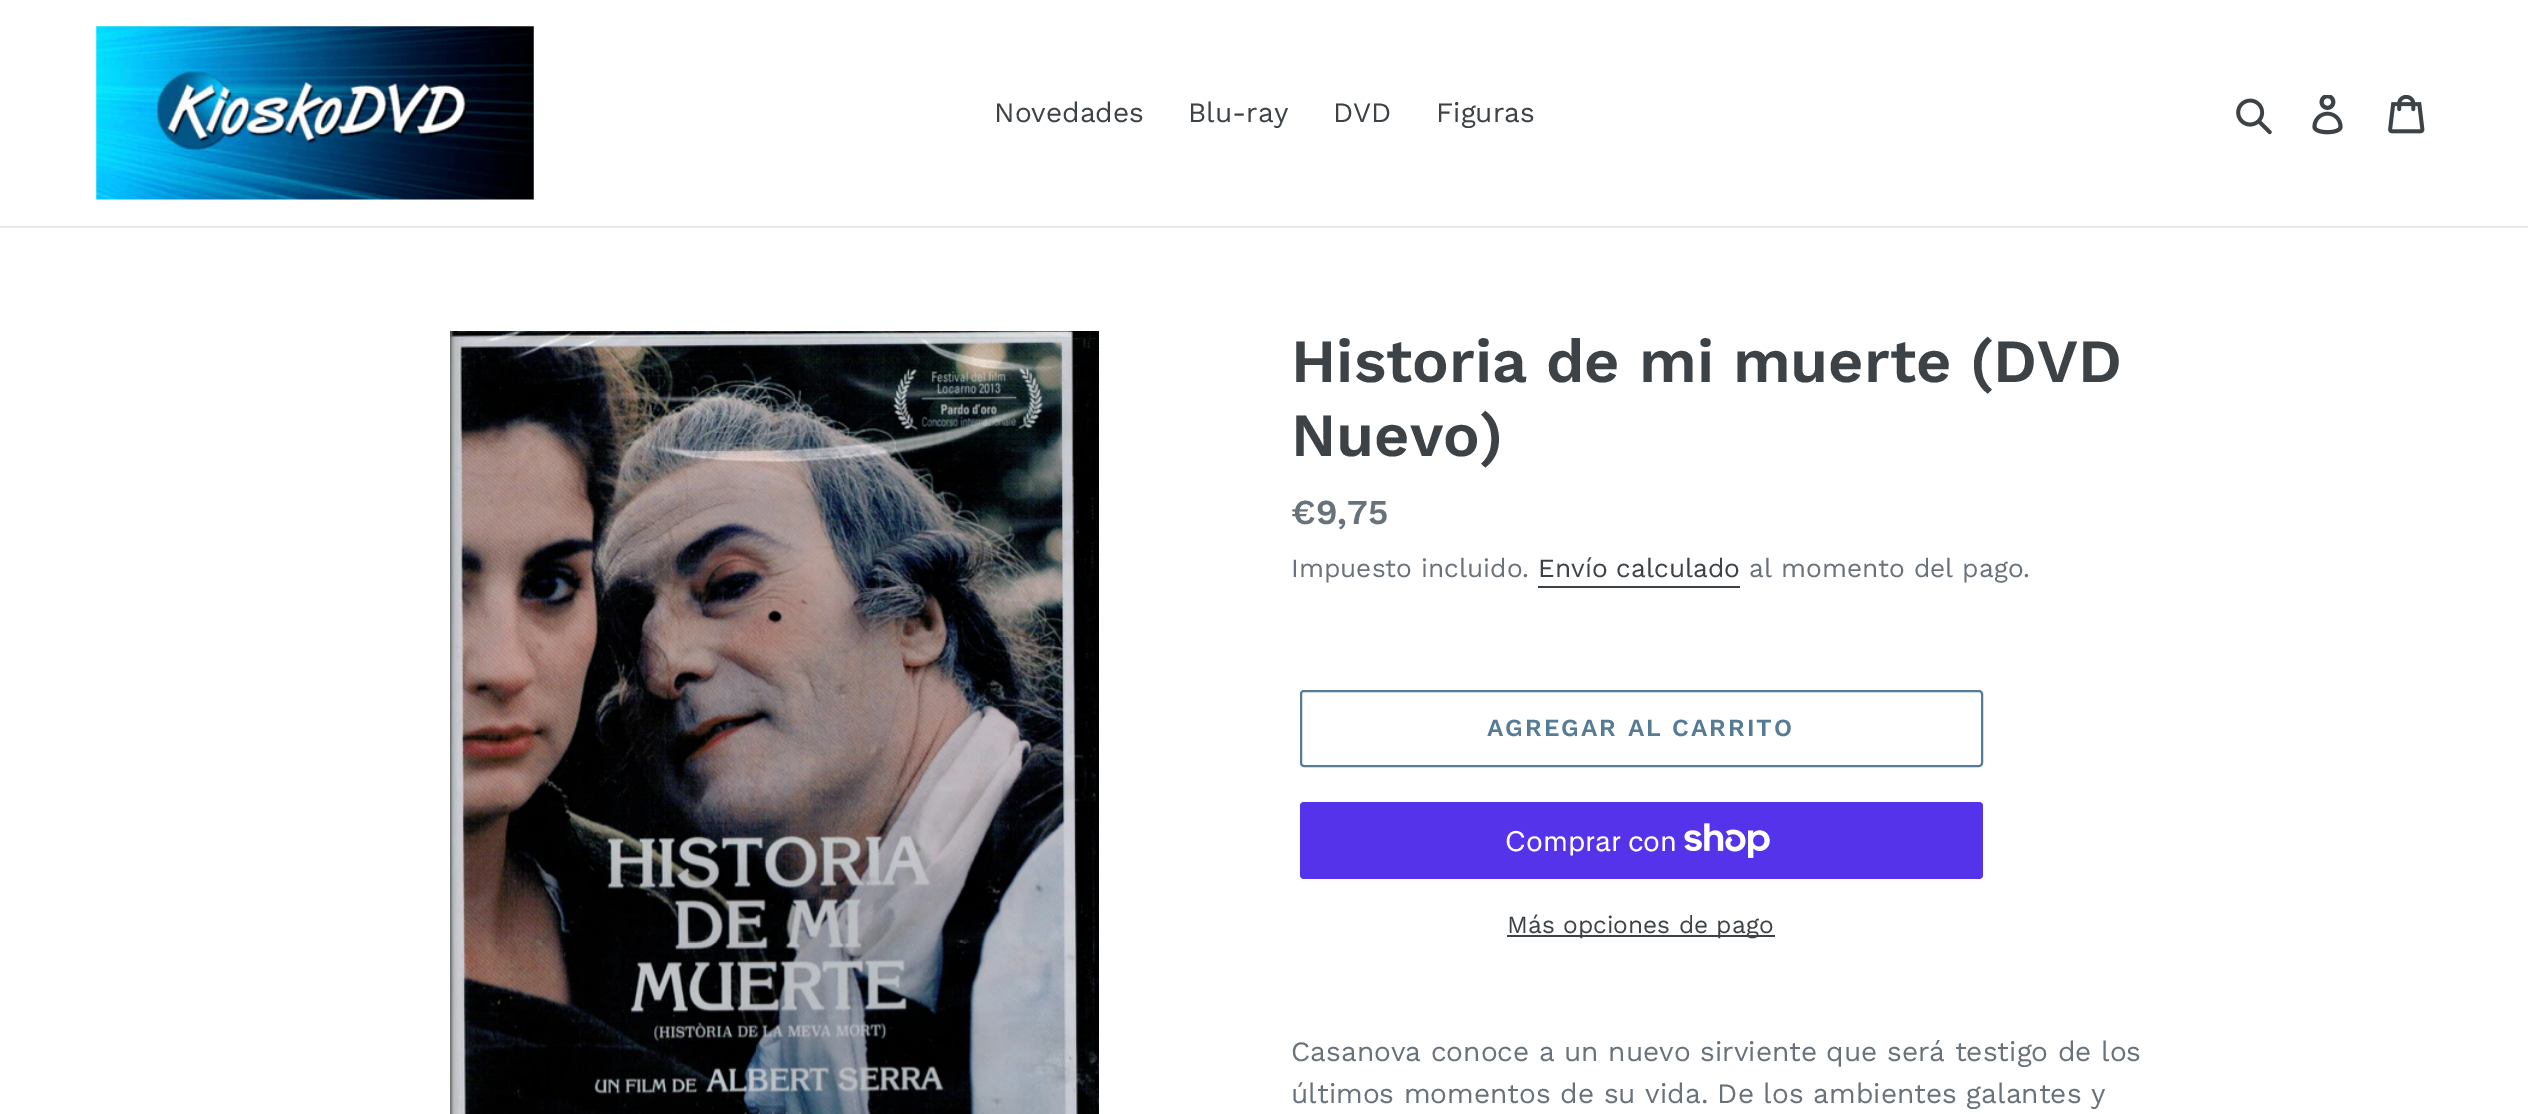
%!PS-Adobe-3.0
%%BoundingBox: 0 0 2528 1114
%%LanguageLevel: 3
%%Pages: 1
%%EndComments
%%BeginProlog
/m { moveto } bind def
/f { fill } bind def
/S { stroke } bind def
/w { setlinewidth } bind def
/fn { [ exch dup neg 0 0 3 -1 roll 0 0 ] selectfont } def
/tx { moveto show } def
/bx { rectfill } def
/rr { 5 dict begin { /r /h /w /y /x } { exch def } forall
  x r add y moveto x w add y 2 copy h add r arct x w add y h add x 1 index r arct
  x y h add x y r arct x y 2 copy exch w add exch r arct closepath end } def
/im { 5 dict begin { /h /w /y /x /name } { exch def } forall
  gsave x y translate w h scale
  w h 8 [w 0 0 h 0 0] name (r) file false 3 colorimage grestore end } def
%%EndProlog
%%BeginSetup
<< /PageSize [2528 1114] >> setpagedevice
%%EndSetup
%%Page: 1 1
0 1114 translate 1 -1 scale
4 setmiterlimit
1 setgray
0 0 2528 1114 bx
0.91 0.914 0.922 setrgbcolor
0 226 2528 2 bx
(image0.raw) 96 26 438 174 im
/WorkSans-Regular 28 fn
0.239 0.259 0.275 setrgbcolor
(Novedades) 994 122 tx
(Blu-ray) 1188 122 tx
(DVD) 1333 122 tx
(Figuras) 1436 122 tx
(image1.raw) 2236 98 36 37 im
(image2.raw) 2312 95 31 40 im
(image3.raw) 2388 95 37 39 im
(image4.raw) 450 331 649 783 im
/WorkSans-SemiBold 61.25 fn
(Historia de mi muerte \(DVD) 1291 382 tx
(Nuevo\)) 1291 456 tx
/WorkSans-SemiBold 35 fn
0.412 0.447 0.482 setrgbcolor
(€9,75) 1291 524 tx
/WorkSans-Regular 26.25 fn
(Impuesto incluido.) 1291 577 tx
0.239 0.259 0.275 setrgbcolor
(Envío calculado) 1538 577 tx
1538 586 202 2 bx
0.412 0.447 0.482 setrgbcolor
(al momento del pago.) 1749 577 tx
0.333 0.482 0.592 setrgbcolor
2 w
1301 691 681 75 3 rr S
/WorkSans-SemiBold 24.5 fn
1487 736 m 2 0 (AGREGAR AL CARRITO) ashow
0.329 0.2 0.922 setrgbcolor
1300 802 683 77 4 rr f
/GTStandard-Regular 28 fn
1 setgray
(Comprar con) 1505 851 tx
(image5.raw) 1684 823 86 35 im
0.239 0.259 0.275 setrgbcolor
1507 935 268 2 bx
/WorkSans-Regular 24.5 fn
(Más opciones de pago) 1507 933 tx
/WorkSans-Regular 28 fn
0.412 0.447 0.482 setrgbcolor
(Casanova conoce a un nuevo sirviente que será testigo de los) 1291 1061 tx
(últimos momentos de su vida. De los ambientes galantes y) 1291 1103 tx
showpage
%%EOF
